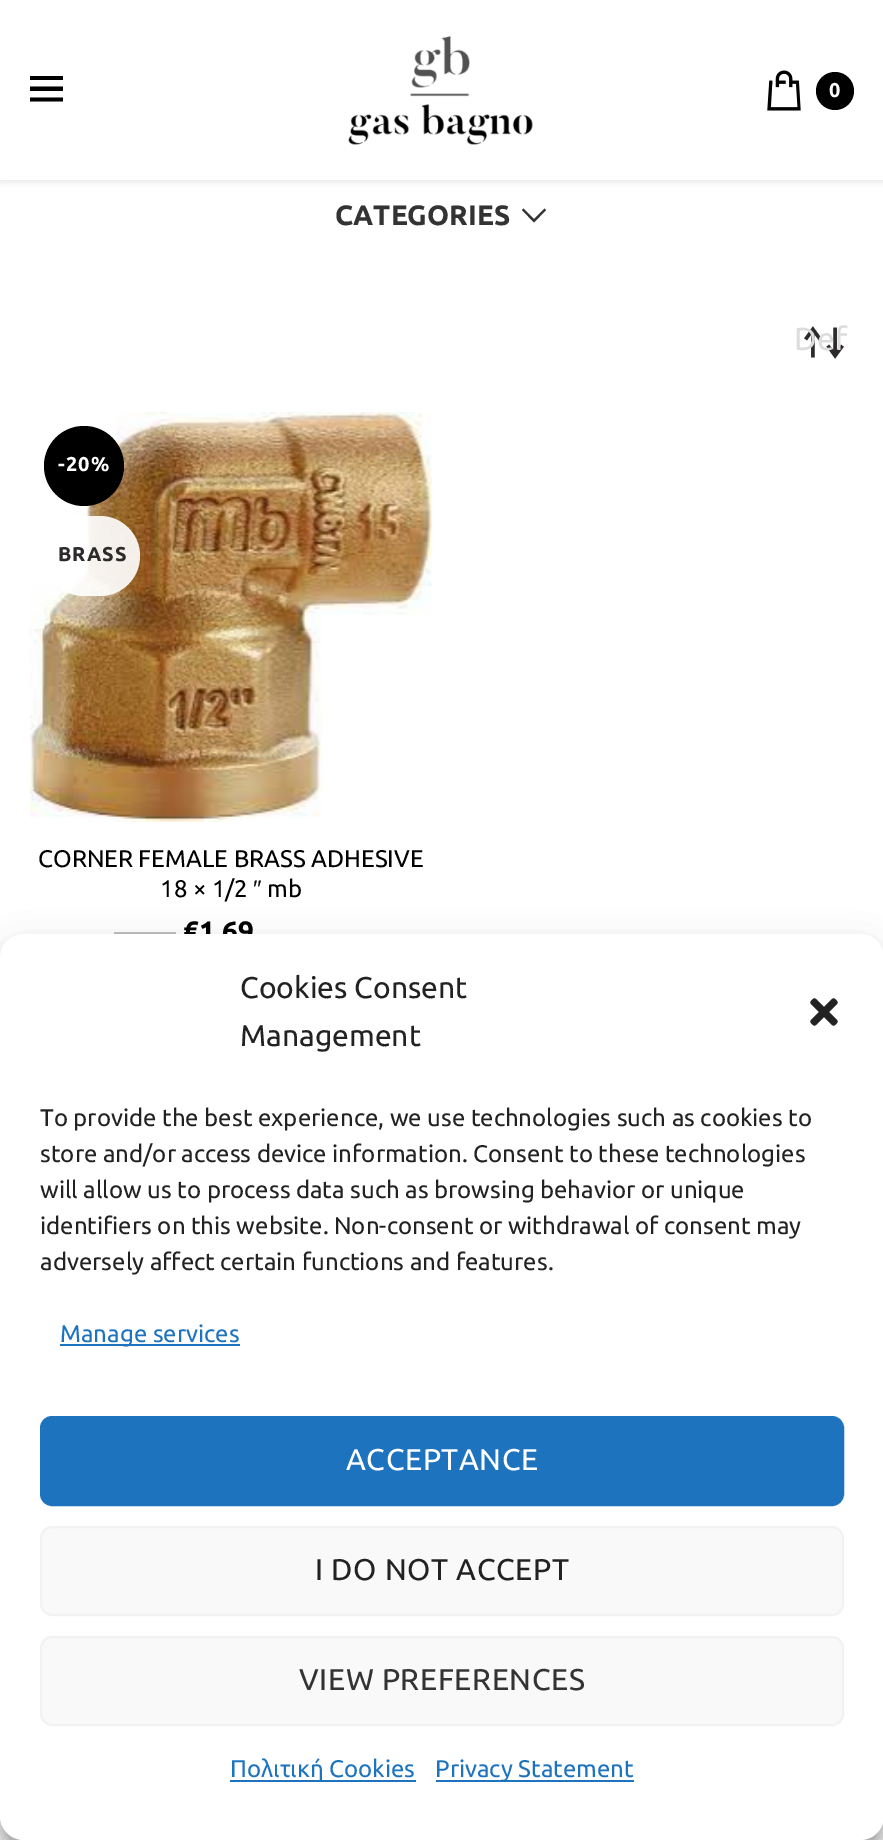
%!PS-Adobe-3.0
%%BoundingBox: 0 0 883 1840
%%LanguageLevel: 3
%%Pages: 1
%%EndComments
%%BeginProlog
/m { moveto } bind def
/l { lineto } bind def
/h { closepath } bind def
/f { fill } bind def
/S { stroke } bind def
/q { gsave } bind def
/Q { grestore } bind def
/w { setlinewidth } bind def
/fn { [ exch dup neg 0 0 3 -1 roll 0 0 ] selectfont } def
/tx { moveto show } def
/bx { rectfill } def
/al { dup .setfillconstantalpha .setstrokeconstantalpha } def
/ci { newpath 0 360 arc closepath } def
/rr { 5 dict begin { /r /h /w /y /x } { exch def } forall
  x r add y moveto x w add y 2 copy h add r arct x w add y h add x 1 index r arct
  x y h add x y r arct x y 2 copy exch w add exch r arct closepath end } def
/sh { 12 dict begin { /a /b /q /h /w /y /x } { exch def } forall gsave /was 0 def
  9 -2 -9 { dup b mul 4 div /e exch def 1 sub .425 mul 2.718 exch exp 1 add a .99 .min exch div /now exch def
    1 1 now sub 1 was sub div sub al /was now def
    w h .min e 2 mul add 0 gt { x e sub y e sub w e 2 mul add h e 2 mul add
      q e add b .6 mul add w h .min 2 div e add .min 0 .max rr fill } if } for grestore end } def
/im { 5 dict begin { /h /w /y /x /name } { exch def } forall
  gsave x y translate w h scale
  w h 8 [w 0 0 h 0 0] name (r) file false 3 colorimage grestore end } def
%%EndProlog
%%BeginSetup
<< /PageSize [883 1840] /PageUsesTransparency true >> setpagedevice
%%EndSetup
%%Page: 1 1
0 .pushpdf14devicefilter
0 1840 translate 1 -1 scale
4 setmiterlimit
1 setgray
0 0 883 1840 bx
0 setgray
0 2 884 180 0 3 0.1 sh
1 setgray
0 0 883 180 bx
0 setgray
30 76 m 63 76 l 63 80 l 30 80 l h 30 86.5 m 63 86.5 l 63 91 l 30 91 l h 30 97.5 m 63 97.5 l 63 101.5 l 30 101.5 l h f
(image0.raw) 348 35 185 110 im
(image1.raw) 767 70 34 41 im
835 91 19 ci f
/Ubuntu-Bold 20 fn
1 setgray
(0) 829 97 tx
/Ubuntu-Bold 28 fn
0.2 setgray
(CATEGORIES) 335 225 tx
544.5 208.5 m 546 210 l 534 222.5 l 522 210 l 523.5 208.5 l 534 219 l h f
(image2.raw) 804 326 40 33 im
/Ubuntu-Regular 32 fn
0.867 0.863 0.863 setrgbcolor
(Def) 794 350 tx
(image3.raw) 30 412 402 410 im
0 setgray
84 466 40 ci f
/Ubuntu-Bold 20 fn
1 setgray
58 471 m 1 0 (-20%) ashow
0.9 al
44 516 96 80 40 rr f
1 al
0.176 0.165 0.165 setrgbcolor
58 561 m 1 0 (BRASS) ashow
/Ubuntu-Regular 24 fn
0 setgray
(CORNER FEMALE BRASS ADHESIVE) 38 867 tx
(18 × 1/2) 160 897 tx
/LiberationSans-Regular 24 fn
(″) 253 897 tx
/Ubuntu-Regular 24 fn
(mb) 267 897 tx
0.741 setgray
114 932 62 2 bx
/Ubuntu-Bold 28 fn
0 setgray
(€1,69) 183 941 tx
0 946 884 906 24 6 0.23 sh
0 954 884 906 24 20 0.19 sh
1 setgray
0 934 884 906 24 rr f
/Ubuntu-Regular 30 fn
0.133 setgray
(Cookies Consent) 240 998 tx
(Management) 240 1046 tx
(image4.raw) 810 998 28 28 im
/Ubuntu-Regular 24 fn
(To provide the best experience, we use technologies such as cookies to) 40 1126 tx
(store and/or access device information. Consent to these technologies) 40 1162 tx
(will allow us to process data such as browsing behavior or unique) 40 1198 tx
(identifiers on this website. Non-consent or withdrawal of consent may) 40 1234 tx
(adversely affect certain functions and features.) 40 1270 tx
0.118 0.451 0.745 setrgbcolor
60 1344 180 2 bx
(Manage services) 60 1342 tx
41 1417 802 88 11 rr q f Q
2 w
S
/Ubuntu-Regular 30 fn
1 setgray
346 1470 m 0.6 0 (ACCEPTANCE) ashow
0.976 setgray
41 1527 802 88 11 rr q f Q
0.949 setgray
S
0.133 setgray
315 1580 m 0.6 0 (I DO NOT ACCEPT) ashow
0.976 setgray
41 1637 802 88 11 rr q f Q
0.949 setgray
S
0.2 setgray
299 1690 m 0.6 0 (VIEW PREFERENCES) ashow
0.118 0.451 0.745 setrgbcolor
230 1780 186 2 bx
/Ubuntu-Regular 24 fn
(Πολιτική Cookies) 230 1777 tx
436 1780 198 2 bx
(Privacy Statement) 435 1777 tx
.poppdf14devicefilter showpage
%%EOF
